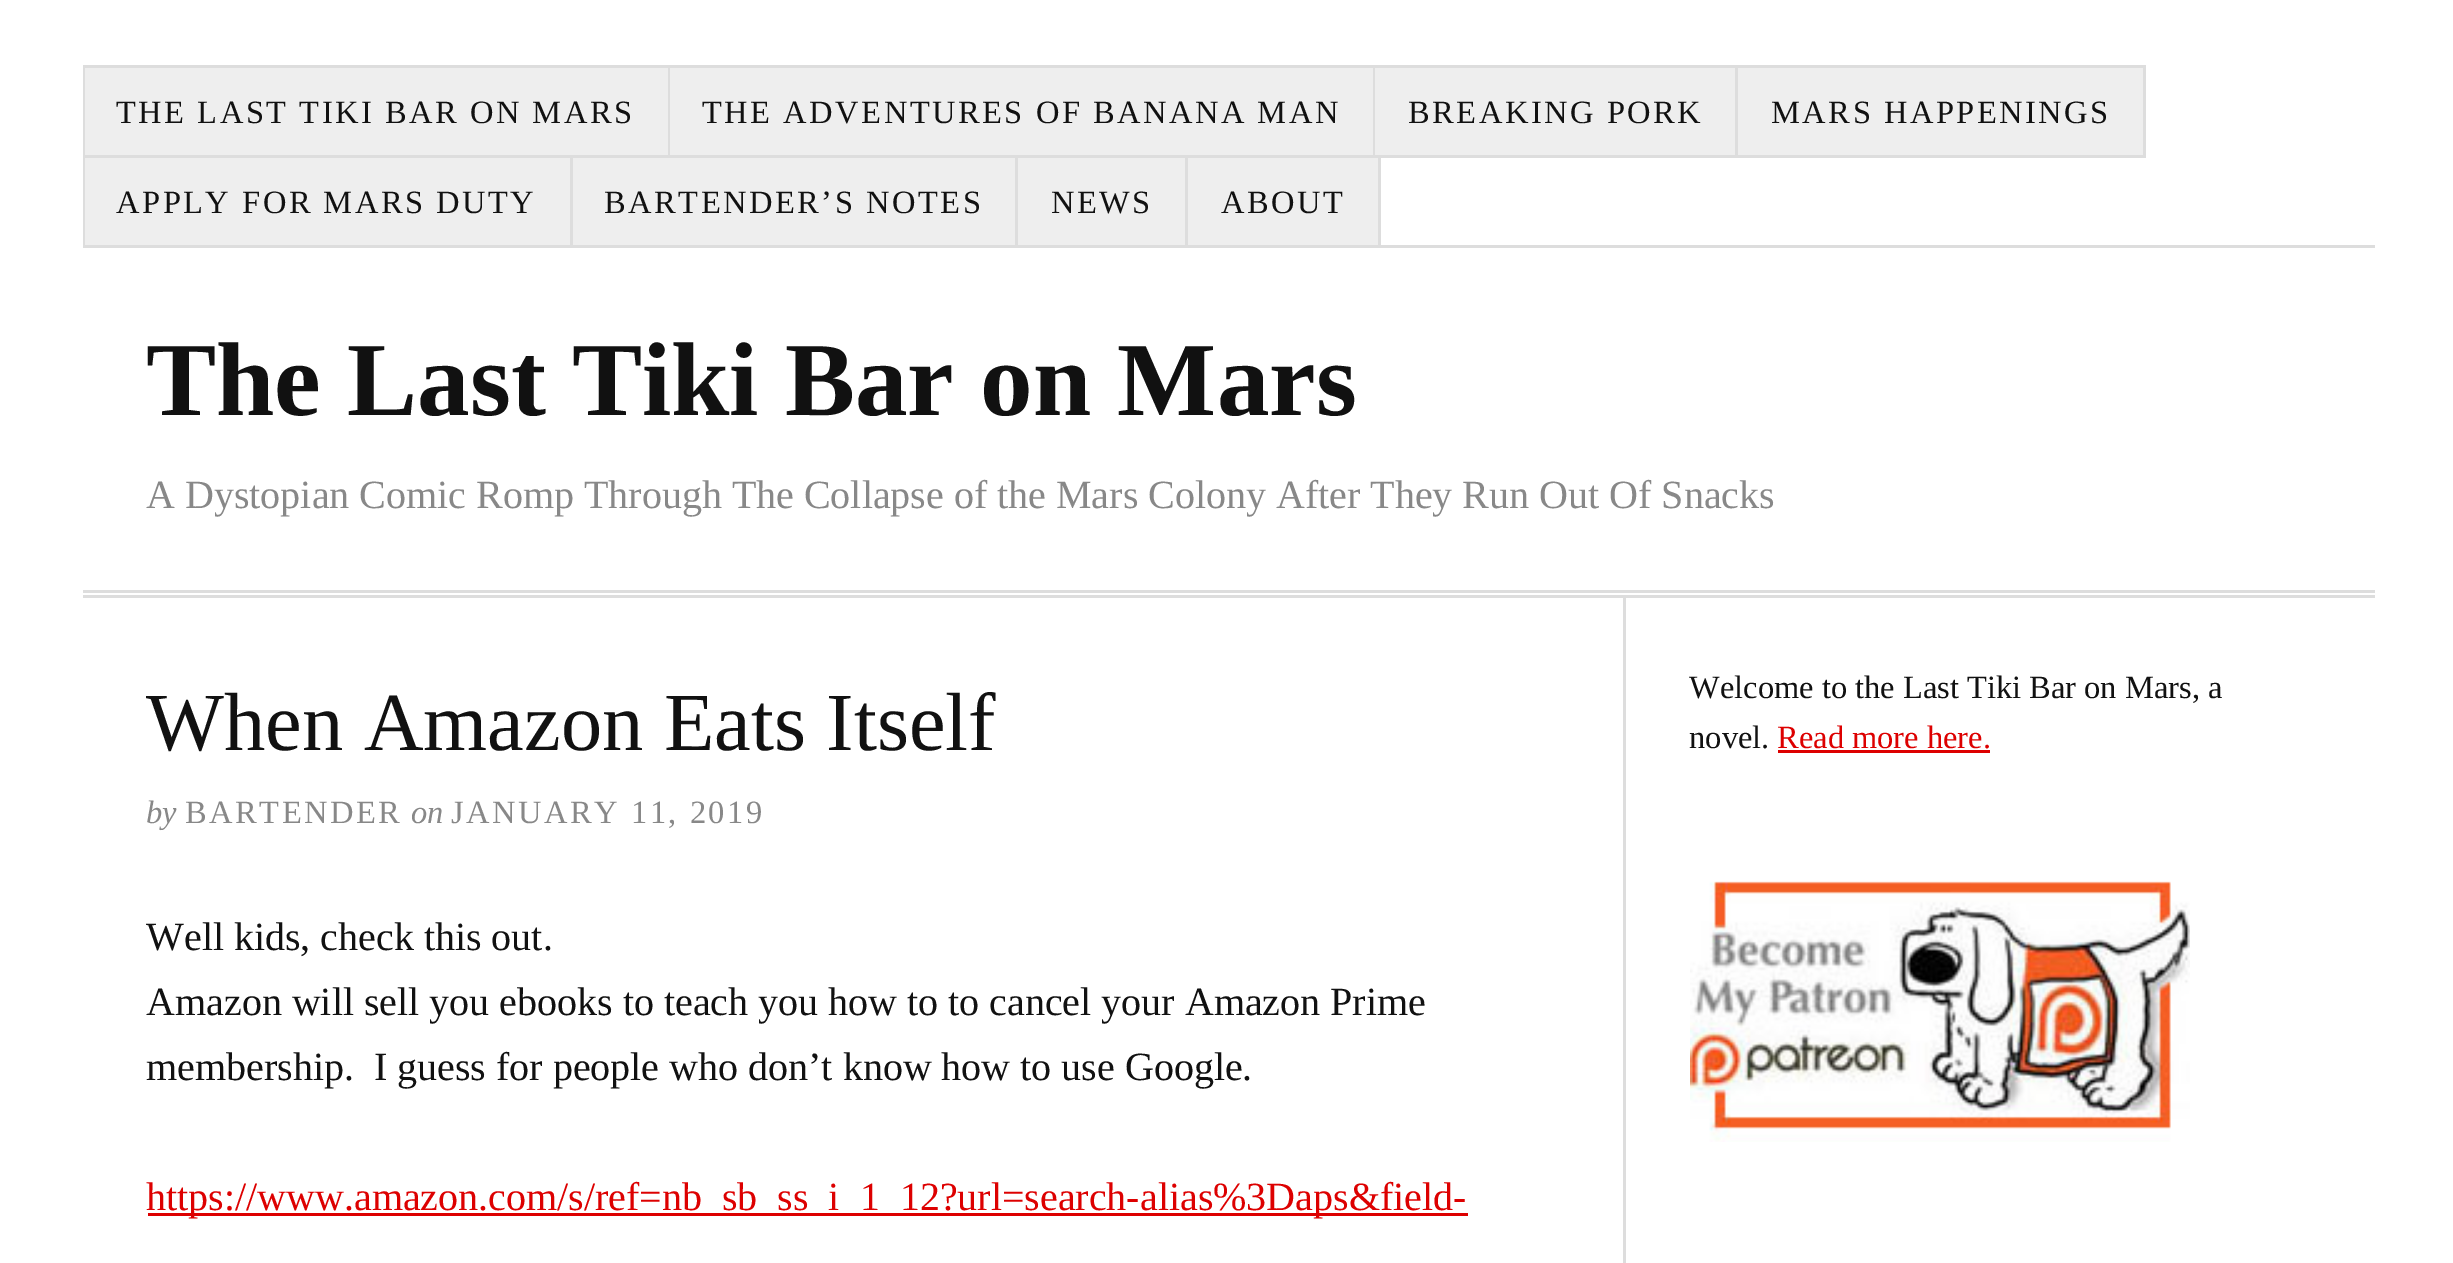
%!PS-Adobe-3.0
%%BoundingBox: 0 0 2453 1263
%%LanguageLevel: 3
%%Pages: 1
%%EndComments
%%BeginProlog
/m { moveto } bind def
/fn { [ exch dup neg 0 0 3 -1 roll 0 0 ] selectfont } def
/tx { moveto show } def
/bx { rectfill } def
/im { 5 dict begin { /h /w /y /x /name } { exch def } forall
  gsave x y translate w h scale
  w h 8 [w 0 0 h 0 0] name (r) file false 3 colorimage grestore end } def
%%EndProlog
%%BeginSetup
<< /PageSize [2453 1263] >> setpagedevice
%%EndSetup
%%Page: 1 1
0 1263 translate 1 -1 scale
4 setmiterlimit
1 setgray
0 0 2453 1263 bx
0.867 setgray
83 245 2292 3 bx
83 65 3 183 bx
0.933 setgray
85 68 583 87 bx
0.867 setgray
85 65 2060 3 bx
668 65 2 93 bx
85 155 585 3 bx
/LiberationSerif-Regular 32.5 fn
0.067 setgray
116 123 m 2.5 0 (THE LAST TIKI BAR ON MARS) ashow
0.933 setgray
670 68 703 87 bx
0.867 setgray
1373 65 2 93 bx
670 155 705 3 bx
0.067 setgray
702 123 m 2.5 0 (THE ADVENTURES OF BANANA MAN) ashow
0.933 setgray
1375 68 360 87 bx
0.867 setgray
1735 65 3 93 bx
1375 155 363 3 bx
0.067 setgray
1408 123 m 2.5 0 (BREAKING PORK) ashow
0.933 setgray
1738 68 405 87 bx
0.867 setgray
2143 65 3 93 bx
1738 155 407 3 bx
0.067 setgray
1771 123 m 2.5 0 (MARS HAPPENINGS) ashow
0.933 setgray
85 158 485 87 bx
0.867 setgray
570 155 3 93 bx
0.067 setgray
116 213 m 2.5 0 (APPLY FOR MARS DUTY) ashow
0.933 setgray
573 158 442 87 bx
0.867 setgray
1015 155 3 93 bx
0.067 setgray
604 213 m 2.5 0 (BARTENDER’S NOTES) ashow
0.933 setgray
1018 158 167 87 bx
0.867 setgray
1185 155 3 93 bx
0.067 setgray
1051 213 m 2.5 0 (NEWS) ashow
0.933 setgray
1188 158 190 87 bx
0.867 setgray
1378 155 3 93 bx
0.067 setgray
1221 213 m 2.5 0 (ABOUT) ashow
0.867 setgray
83 590 2292 3 bx
83 595 2292 3 bx
/LiberationSerif-Bold 105 fn
0.067 setgray
(The Last Tiki Bar on Mars) 146 415 tx
/LiberationSerif-Regular 40 fn
0.533 setgray
(A Dystopian Comic Romp Through The Collapse of the Mars Colony After They Run Out Of Snacks) 146 508 tx
0.867 setgray
1623 598 3 665 bx
/LiberationSerif-Regular 82.5 fn
0.067 setgray
(When Amazon Eats Itself) 146 750 tx
/LiberationSerif-Italic 32.5 fn
0.533 setgray
(by) 146 823 tx
/LiberationSerif-Regular 32.5 fn
185 823 m 2.5 0 (BARTENDER) ashow
/LiberationSerif-Italic 32.5 fn
(on) 411 823 tx
/LiberationSerif-Regular 32.5 fn
451 823 m 2.5 0 (JANUARY 11, 2019) ashow
/LiberationSerif-Regular 40 fn
0.067 setgray
(Well kids, check this out.) 146 950 tx
(Amazon will sell you ebooks to teach you how to to cancel your Amazon Prime) 146 1015 tx
(membership.  I guess for people who don’t know how to use Google.) 146 1080 tx
0.867 0 0 setrgbcolor
148 1213 1320 3 bx
(https://www.amazon.com/s/ref=nb_sb_ss_i_1_12?url=search-alias%3Daps&field-) 146 1210 tx
/LiberationSerif-Regular 32.5 fn
0.067 setgray
(Welcome to the Last Tiki Bar on Mars, a) 1689 698 tx
(novel.) 1689 748 tx
0.867 0 0 setrgbcolor
(Read more here.) 1777 748 tx
1778 750 212 3 bx
(image0.raw) 1690 881 500 261 im
showpage
%%EOF
